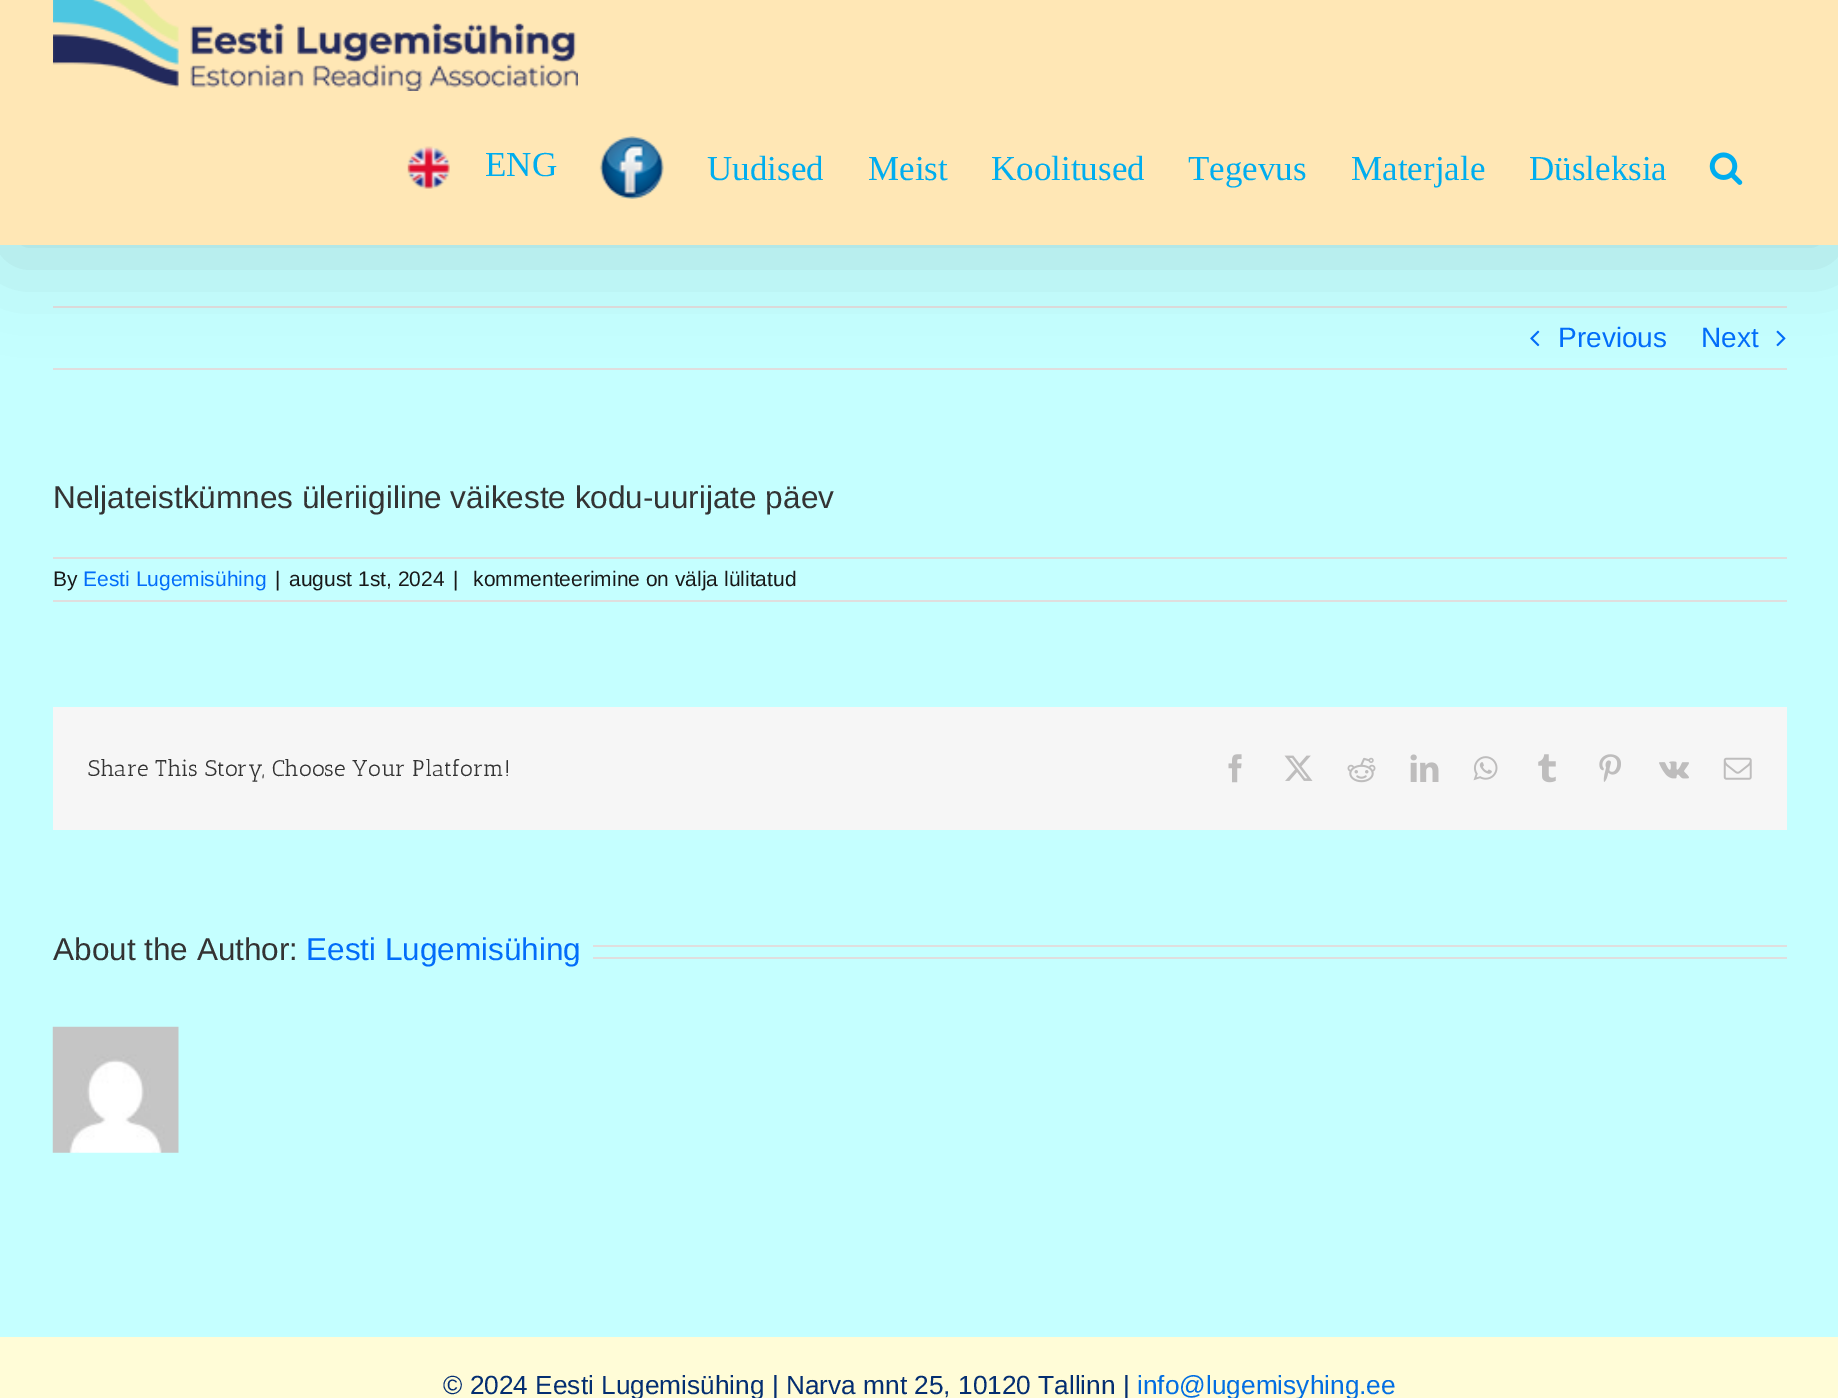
%!PS-Adobe-3.0
%%BoundingBox: 0 0 1838 1398
%%LanguageLevel: 3
%%Pages: 1
%%EndComments
%%BeginProlog
/fn { [ exch dup neg 0 0 3 -1 roll 0 0 ] selectfont } def
/tx { moveto show } def
/bx { rectfill } def
/al { dup .setfillconstantalpha .setstrokeconstantalpha } def
/rr { 5 dict begin { /r /h /w /y /x } { exch def } forall
  x r add y moveto x w add y 2 copy h add r arct x w add y h add x 1 index r arct
  x y h add x y r arct x y 2 copy exch w add exch r arct closepath end } def
/sh { 12 dict begin { /a /b /q /h /w /y /x } { exch def } forall gsave /was 0 def
  9 -2 -9 { dup b mul 4 div /e exch def 1 sub .425 mul 2.718 exch exp 1 add a .99 .min exch div /now exch def
    1 1 now sub 1 was sub div sub al /was now def
    w h .min e 2 mul add 0 gt { x e sub y e sub w e 2 mul add h e 2 mul add
      q e add b .6 mul add w h .min 2 div e add .min 0 .max rr fill } if } for grestore end } def
/im { 5 dict begin { /h /w /y /x /name } { exch def } forall
  gsave x y translate w h scale
  w h 8 [w 0 0 h 0 0] name (r) file false 3 colorimage grestore end } def
%%EndProlog
%%BeginSetup
<< /PageSize [1838 1398] /PageUsesTransparency true >> setpagedevice
%%EndSetup
%%Page: 1 1
0 .pushpdf14devicefilter
0 1398 translate 1 -1 scale
4 setmiterlimit
0.773 1 1 setrgbcolor
0 0 1838 1398 bx
0.878 0.871 0.871 setrgbcolor
53 306 1734 2 bx
53 368 1734 2 bx
(image4.raw) 1530 330 10 17 im
(image5.raw) 1776 330 10 17 im
0 setgray
4 -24 1832 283 0 44 0.14 sh
1 0.906 0.71 setrgbcolor
0 0 1838 245 bx
(image0.raw) 53 0 525 91 im
(image1.raw) 407 146 43 43 im
/LiberationSerif-Regular 35 fn
0 0.678 0.937 setrgbcolor
(ENG) 485 176 tx
(image2.raw) 599 136 65 63 im
(Uudised) 707 180 tx
(Meist) 868 180 tx
(Koolitused) 991 180 tx
(Tegevus) 1188 180 tx
(Materjale) 1351 180 tx
(Düsleksia) 1529 180 tx
(image3.raw) 1709 152 34 33 im
/LiberationSans-Regular 28 fn
0.008 0.427 0.976 setrgbcolor
(Previous) 1558 347 tx
(Next) 1701 347 tx
/LiberationSans-Regular 31.5 fn
0.2 setgray
(Neljateistkümnes üleriigiline väikeste kodu-uurijate päev) 53 508 tx
0.878 0.871 0.871 setrgbcolor
53 557 1734 2 bx
53 600 1734 2 bx
/LiberationSans-Regular 21 fn
0.098 setgray
(By) 53 586 tx
0.008 0.427 0.976 setrgbcolor
(Eesti Lugemisühing) 83 586 tx
0.098 setgray
(|) 275 586 tx
(august 1st, 2024) 289 586 tx
(|) 453 586 tx
(kommenteerimine on välja lülitatud) 473 586 tx
0.965 setgray
53 707 1734 123 bx
/AnticSlab-Regular 22.75 fn
0.2 setgray
(Share This Story, Choose Your Platform!) 88 776 tx
(image6.raw) 1228 754 14 29 im
(image7.raw) 1284 755 29 26 im
(image8.raw) 1347 757 29 26 im
(image9.raw) 1410 754 29 28 im
(image10.raw) 1473 756 25 25 im
(image11.raw) 1538 754 18 29 im
(image12.raw) 1599 754 22 28 im
(image13.raw) 1659 761 30 18 im
(image14.raw) 1723 757 29 23 im
/LiberationSans-Regular 31.5 fn
(About the Author:) 53 960 tx
0.008 0.427 0.976 setrgbcolor
(Eesti Lugemisühing) 306 960 tx
0.878 0.871 0.871 setrgbcolor
593 945 1194 2 bx
593 957 1194 2 bx
(image15.raw) 52 1026 127 127 im
1 0.988 0.843 setrgbcolor
0 1337 1838 61 bx
/LiberationSans-Regular 26.25 fn
0.016 0.18 0.443 setrgbcolor
(© 2024 Eesti Lugemisühing | Narva mnt 25, 10120 Tallinn |) 443 1394 tx
0.008 0.431 0.886 setrgbcolor
(info@lugemisyhing.ee) 1137 1394 tx
.poppdf14devicefilter showpage
%%EOF
